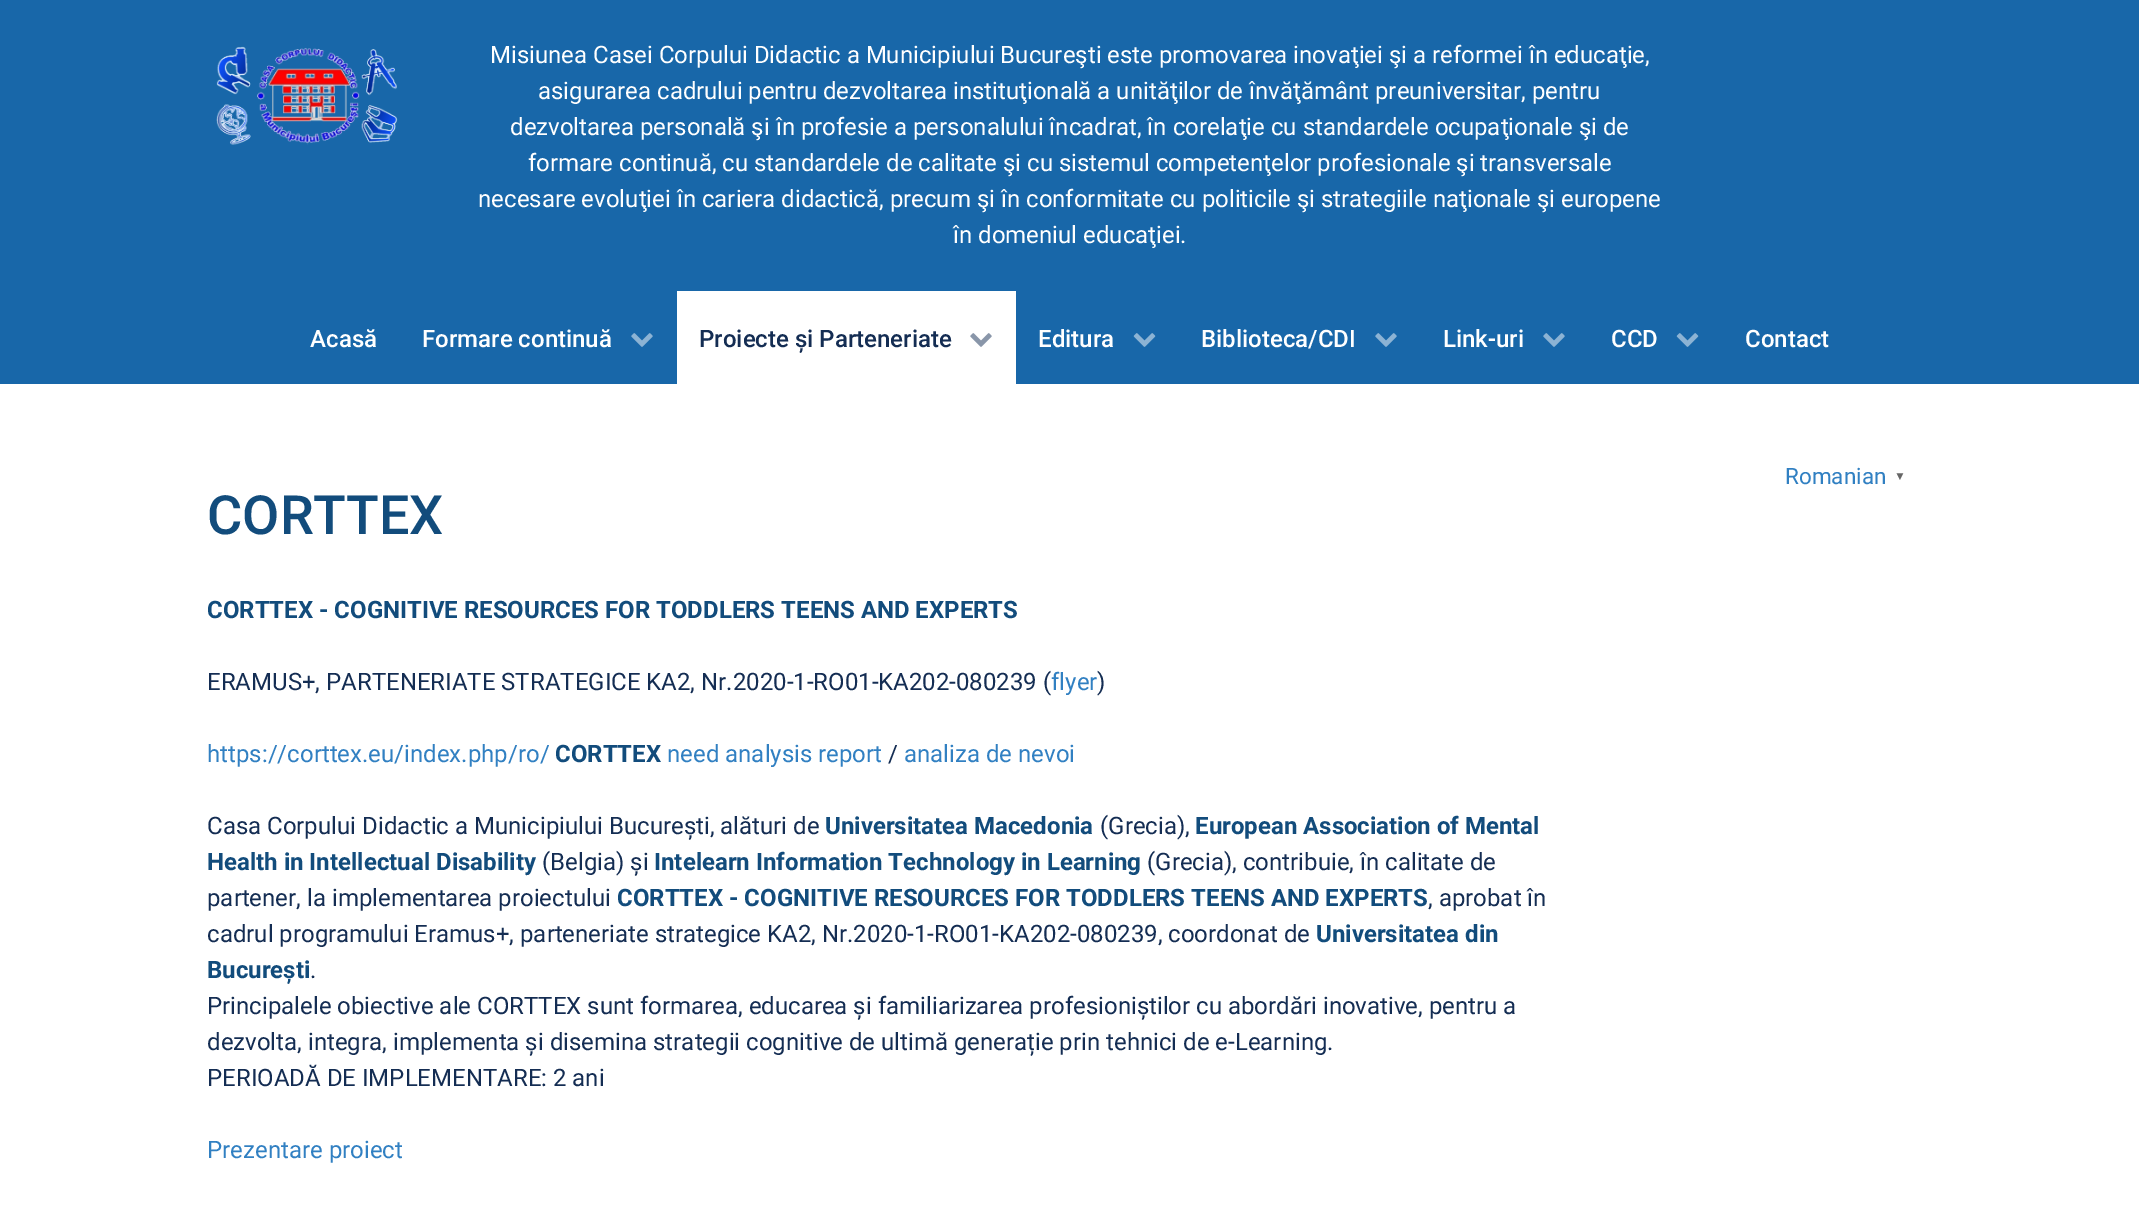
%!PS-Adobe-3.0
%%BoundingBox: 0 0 2139 1212
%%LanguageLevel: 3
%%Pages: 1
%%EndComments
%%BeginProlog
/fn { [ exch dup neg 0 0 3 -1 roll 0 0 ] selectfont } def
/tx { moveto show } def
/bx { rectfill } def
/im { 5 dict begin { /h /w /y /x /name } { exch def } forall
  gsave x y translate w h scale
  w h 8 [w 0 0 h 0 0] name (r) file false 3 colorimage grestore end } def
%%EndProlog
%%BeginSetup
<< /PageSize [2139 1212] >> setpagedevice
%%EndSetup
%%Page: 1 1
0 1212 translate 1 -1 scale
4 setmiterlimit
1 setgray
0 0 2139 1212 bx
0.094 0.404 0.663 setrgbcolor
0 0 2139 384 bx
(image0.raw) 216 46 182 99 im
/Roboto-Regular 24 fn
1 setgray
(Misiunea Casei Corpului Didactic a Municipiului Bucureşti este promovarea inovaţiei şi a reformei în educaţie,) 490 63 tx
(asigurarea cadrului pentru dezvoltarea instituţională a unităţilor de învăţământ preuniversitar, pentru) 538 99 tx
(dezvoltarea personală şi în profesie a personalului încadrat, în corelaţie cu standardele ocupaţionale şi de) 510 135 tx
(formare continuă, cu standardele de calitate şi cu sistemul competenţelor profesionale şi transversale) 528 171 tx
(necesare evoluţiei în cariera didactică, precum şi în conformitate cu politicile şi strategiile naţionale şi europene) 478 207 tx
(în domeniul educaţiei.) 953 243 tx
/Roboto-Medium 24 fn
(Acasă) 310 347 tx
(Formare continuă) 422 347 tx
(image1.raw) 631 333 22 14 im
677 291 339 93 bx
0.078 0.176 0.325 setrgbcolor
(Proiecte și Parteneriate) 699 347 tx
(image2.raw) 970 333 22 14 im
1 setgray
(Editura) 1038 347 tx
(image3.raw) 1133 333 23 14 im
(Biblioteca/CDI) 1201 347 tx
(image1.raw) 1375 333 22 14 im
(Link-uri) 1443 347 tx
(image1.raw) 1543 333 22 14 im
(CCD) 1611 347 tx
(image3.raw) 1676 333 23 14 im
(Contact) 1745 347 tx
/Roboto-Regular 22.5 fn
0.192 0.502 0.761 setrgbcolor
(Romanian) 1785 484 tx
/LiberationSans-Bold 12 fn
0.4 setgray
(▼) 1894 480 tx
/Roboto-Medium 54 fn
0.071 0.298 0.486 setrgbcolor
(CORTTEX) 207 534 tx
/Roboto-Bold 24 fn
(CORTTEX - COGNITIVE RESOURCES FOR TODDLERS TEENS AND EXPERTS) 207 618 tx
/Roboto-Regular 24 fn
0.078 0.176 0.325 setrgbcolor
(ERAMUS+, PARTENERIATE STRATEGICE KA2, Nr.2020-1-RO01-KA202-080239 \() 207 690 tx
0.192 0.502 0.761 setrgbcolor
(flyer) 1051 690 tx
0.078 0.176 0.325 setrgbcolor
(\)) 1097 690 tx
0.192 0.502 0.761 setrgbcolor
(https://corttex.eu/index.php/ro/) 207 762 tx
/Roboto-Bold 24 fn
0.071 0.298 0.486 setrgbcolor
(CORTTEX) 555 762 tx
/Roboto-Regular 24 fn
0.192 0.502 0.761 setrgbcolor
(need analysis report) 667 762 tx
0.078 0.176 0.325 setrgbcolor
(/) 888 762 tx
0.192 0.502 0.761 setrgbcolor
(analiza de nevoi) 904 762 tx
0.078 0.176 0.325 setrgbcolor
(Casa Corpului Didactic a Municipiului București, alături de) 207 834 tx
/Roboto-Bold 24 fn
0.071 0.298 0.486 setrgbcolor
(Universitatea Macedonia) 825 834 tx
/Roboto-Regular 24 fn
0.078 0.176 0.325 setrgbcolor
(\(Grecia\),) 1100 834 tx
/Roboto-Bold 24 fn
0.071 0.298 0.486 setrgbcolor
(European Association of Mental) 1195 834 tx
(Health in Intellectual Disability) 207 870 tx
/Roboto-Regular 24 fn
0.078 0.176 0.325 setrgbcolor
(\(Belgia\) și) 542 870 tx
/Roboto-Bold 24 fn
0.071 0.298 0.486 setrgbcolor
(Intelearn Information Technology in Learning) 654 870 tx
/Roboto-Regular 24 fn
0.078 0.176 0.325 setrgbcolor
(\(Grecia\), contribuie, în calitate de) 1147 870 tx
(partener, la implementarea proiectului) 207 906 tx
/Roboto-Bold 24 fn
0.071 0.298 0.486 setrgbcolor
(CORTTEX - COGNITIVE RESOURCES FOR TODDLERS TEENS AND EXPERTS) 617 906 tx
/Roboto-Regular 24 fn
0.078 0.176 0.325 setrgbcolor
(, aprobat în) 1428 906 tx
(cadrul programului Eramus+, parteneriate strategice KA2, Nr.2020-1-RO01-KA202-080239, coordonat de) 207 942 tx
/Roboto-Bold 24 fn
0.071 0.298 0.486 setrgbcolor
(Universitatea din) 1316 942 tx
(București) 207 978 tx
/Roboto-Regular 24 fn
0.078 0.176 0.325 setrgbcolor
(.) 310 978 tx
(Principalele obiective ale CORTTEX sunt formarea, educarea și familiarizarea profesioniștilor cu abordări inovative, pentru a) 207 1014 tx
(dezvolta, integra, implementa și disemina strategii cognitive de ultimă generație prin tehnici de e-Learning.) 207 1050 tx
(PERIOADĂ DE IMPLEMENTARE: 2 ani) 207 1086 tx
0.192 0.502 0.761 setrgbcolor
(Prezentare proiect) 207 1158 tx
showpage
%%EOF
